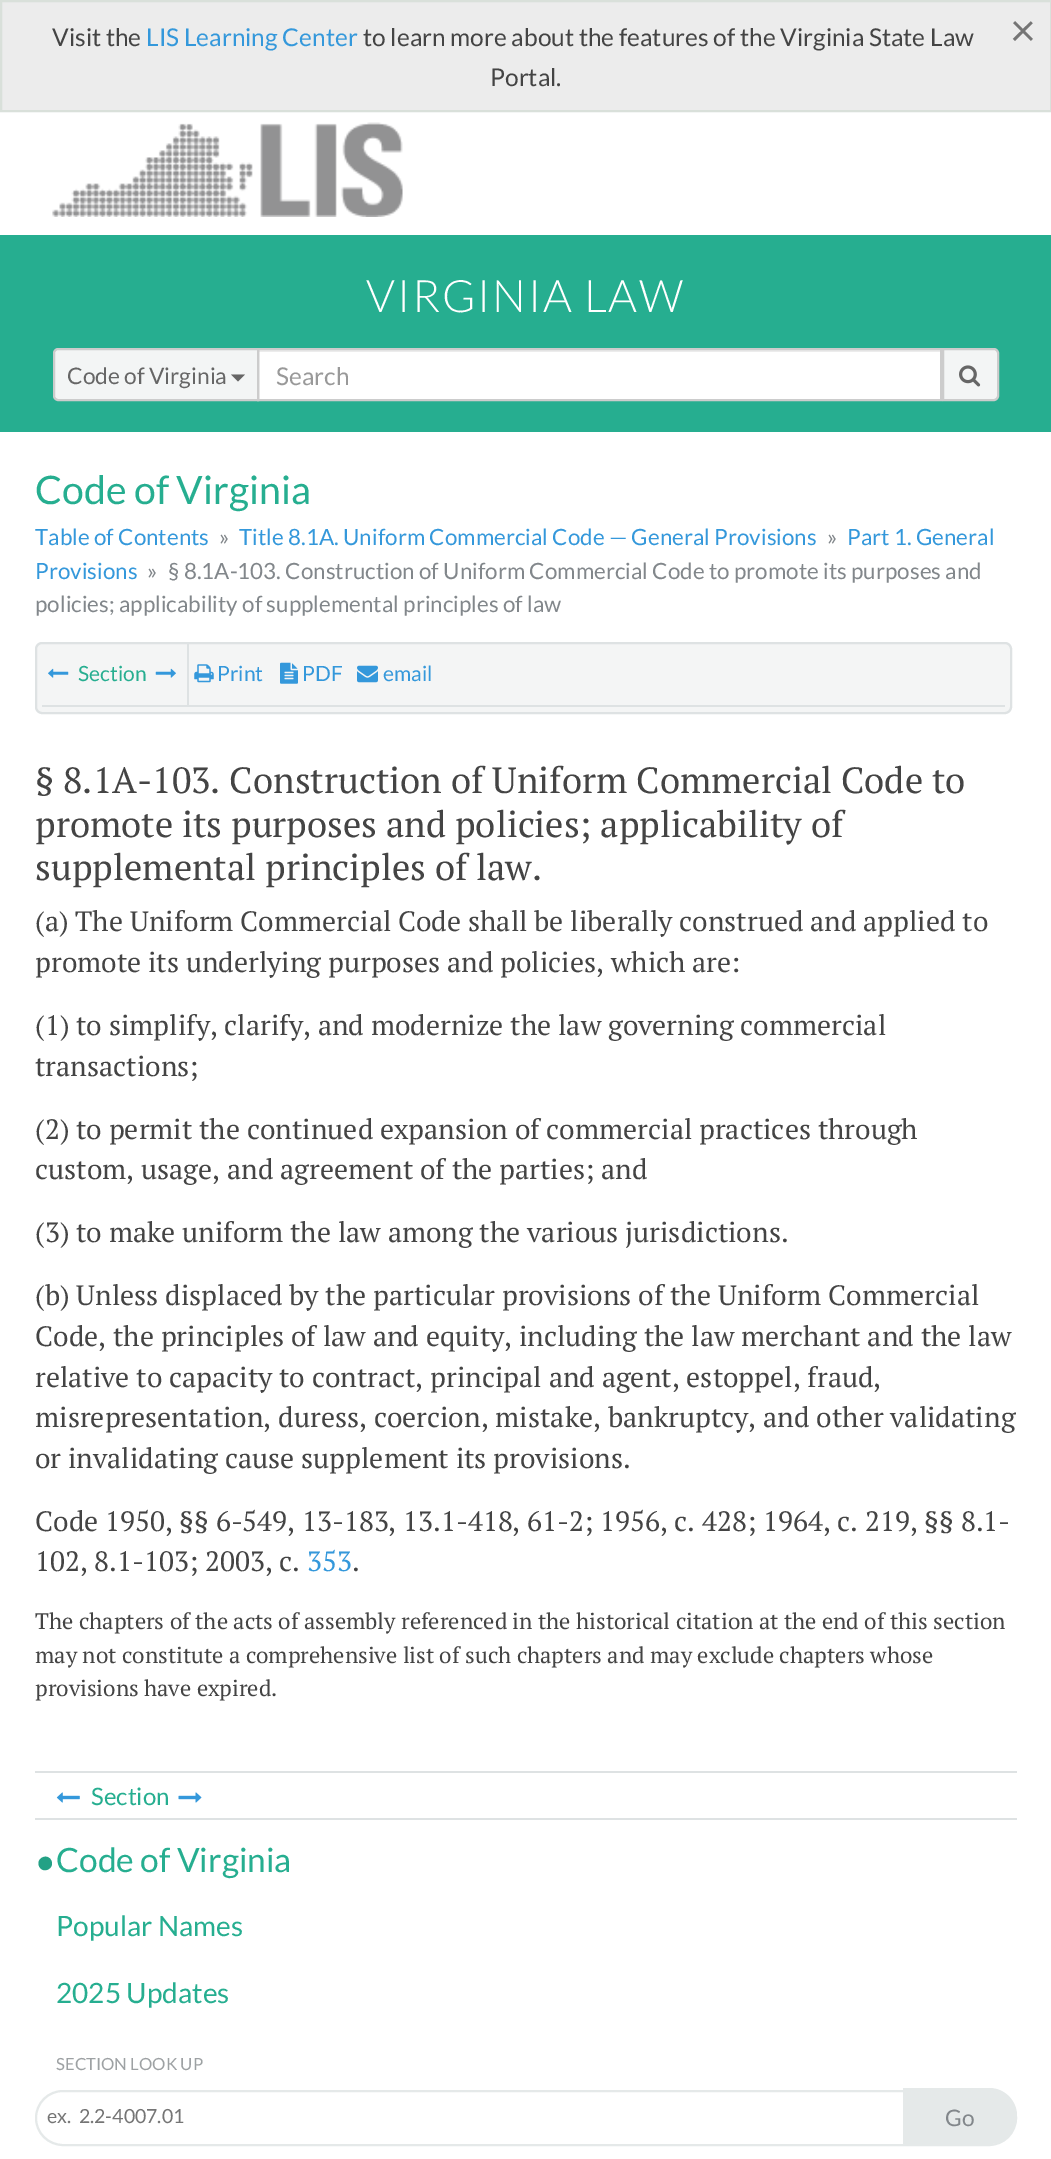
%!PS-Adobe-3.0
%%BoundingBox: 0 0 1051 2159
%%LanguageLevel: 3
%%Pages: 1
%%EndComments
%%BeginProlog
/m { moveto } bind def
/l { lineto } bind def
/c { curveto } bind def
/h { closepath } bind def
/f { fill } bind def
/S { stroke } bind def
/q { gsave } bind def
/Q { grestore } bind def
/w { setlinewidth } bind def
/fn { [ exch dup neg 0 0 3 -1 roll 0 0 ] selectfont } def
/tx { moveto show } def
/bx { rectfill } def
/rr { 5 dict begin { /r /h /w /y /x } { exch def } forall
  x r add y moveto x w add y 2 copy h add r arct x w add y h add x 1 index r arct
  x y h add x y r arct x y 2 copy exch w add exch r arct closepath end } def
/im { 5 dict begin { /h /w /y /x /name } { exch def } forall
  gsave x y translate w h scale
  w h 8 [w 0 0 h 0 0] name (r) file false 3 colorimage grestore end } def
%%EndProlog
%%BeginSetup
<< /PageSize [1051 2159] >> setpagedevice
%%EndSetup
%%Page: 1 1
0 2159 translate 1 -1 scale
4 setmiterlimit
1 setgray
0 0 1051 2159 bx
0.925 setgray
1 1 m 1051 1 l 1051 111 l 1 111 l h q f Q
0.851 0.878 0.855 setrgbcolor
2 w
S
/Lato-Regular 24.5 fn
0.267 setgray
(Visit the) 52 46 tx
0.204 0.596 0.859 setrgbcolor
(LIS Learning Center) 146 46 tx
0.267 setgray
(to learn more about the features of the Virginia State Law) 363 46 tx
/Lato-Regular 45 fn
0.459 setgray
(×) 1010 46 tx
/Lato-Regular 24.5 fn
0.267 setgray
(Portal.) 490 86 tx
(image0.raw) 52 122 351 95 im
0.149 0.682 0.565 setrgbcolor
0 235 1051 197 bx
/Lato-Light 44.75 fn
1 setgray
366 312 m 1.75 0 (VIRGINIA LAW) ashow
259 352 681 47 bx
0.925 setgray
259 350 681 2 bx
0.8 setgray
258 349 683 51 rectstroke
0.953 0.961 0.961 setrgbcolor
58 349 m 258 349 l 258 400 l 58 400 l 56 400 54 398 54 396 c 54 353 l 54 351 56 349 58 349 c h q f Q
0.8 setgray
S
/Lato-Regular 22.75 fn
0.4 setgray
(Code of Virginia) 67 384 tx
231 374.5 m 245 374.5 l 238 381.5 l h f
/Lato-Regular 24.5 fn
0.6 setgray
(Search) 276 385 tx
0.953 0.961 0.961 setrgbcolor
943 349 m 994 349 l 996 349 998 351 998 353 c 998 396 l 998 398 996 400 994 400 c 943 400 l h q f Q
0.8 setgray
S
(image1.raw) 959 365 22 22 im
/Lato-Regular 39.25 fn
0.149 0.682 0.565 setrgbcolor
(Code of Virginia) 35 504 tx
/Lato-Regular 22.4 fn
0.204 0.596 0.859 setrgbcolor
(Table of Contents) 35 545 tx
0.51 0.529 0.545 setrgbcolor
(») 219 545 tx
0.204 0.596 0.859 setrgbcolor
(Title 8.1A. Uniform Commercial Code — General Provisions) 239 545 tx
0.51 0.529 0.545 setrgbcolor
(») 827 545 tx
0.204 0.596 0.859 setrgbcolor
(Part 1. General) 847 545 tx
(Provisions) 35 579 tx
0.51 0.529 0.545 setrgbcolor
(») 147 579 tx
(§ 8.1A-103. Construction of Uniform Commercial Code to promote its purposes and) 168 579 tx
(policies; applicability of supplemental principles of law) 35 612 tx
0.957 0.961 0.961 setrgbcolor
36 643 975 70 6 rr q f Q
0.871 0.886 0.89 setrgbcolor
S
187 644 2 61 bx
(image2.raw) 48 668 21 10 im
/Lato-Regular 21 fn
0.149 0.682 0.565 setrgbcolor
(Section) 78 681 tx
(image3.raw) 155 668 21 10 im
(image4.raw) 194 664 20 19 im
0.204 0.596 0.859 setrgbcolor
(Print) 217 681 tx
(image5.raw) 280 662 18 22 im
(PDF) 302 681 tx
(image6.raw) 357 665 21 18 im
(email) 383 681 tx
0.871 0.886 0.89 setrgbcolor
42 705 963 2 bx
/PTSerif-Regular 36.4 fn
0.267 setgray
(§ 8.1A-103. Construction of Uniform Commercial Code to) 35 793 tx
(promote its purposes and policies; applicability of) 35 837 tx
(supplemental principles of law.) 35 880 tx
/PTSerif-Regular 28 fn
(\(a\) The Uniform Commercial Code shall be liberally construed and applied to) 35 931 tx
(promote its underlying purposes and policies, which are:) 35 972 tx
(\(1\) to simplify, clarify, and modernize the law governing commercial) 35 1035 tx
(transactions;) 35 1076 tx
(\(2\) to permit the continued expansion of commercial practices through) 35 1139 tx
(custom, usage, and agreement of the parties; and) 35 1179 tx
(\(3\) to make uniform the law among the various jurisdictions.) 35 1242 tx
(\(b\) Unless displaced by the particular provisions of the Uniform Commercial) 35 1305 tx
(Code, the principles of law and equity, including the law merchant and the law) 35 1346 tx
(relative to capacity to contract, principal and agent, estoppel, fraud,) 35 1387 tx
(misrepresentation, duress, coercion, mistake, bankruptcy, and other validating) 35 1427 tx
(or invalidating cause supplement its provisions.) 35 1468 tx
(Code 1950, §§ 6-549, 13-183, 13.1-418, 61-2; 1956, c. 428; 1964, c. 219, §§ 8.1-) 35 1531 tx
(102, 8.1-103; 2003, c.) 35 1571 tx
0.204 0.596 0.859 setrgbcolor
(353) 307 1571 tx
0.267 setgray
(.) 352 1571 tx
/PTSerif-Regular 22.4 fn
(The chapters of the acts of assembly referenced in the historical citation at the end of this section) 35 1629 tx
(may not constitute a comprehensive list of such chapters and may exclude chapters whose) 35 1663 tx
(provisions have expired.) 35 1696 tx
0.871 0.886 0.89 setrgbcolor
35 1771 982 2 bx
(image7.raw) 56 1792 24 11 im
/Lato-Regular 24 fn
0.149 0.682 0.565 setrgbcolor
(Section) 91 1805 tx
(image8.raw) 178 1792 24 11 im
0.871 0.886 0.89 setrgbcolor
35 1818 982 2 bx
0.137 0.631 0.522 setrgbcolor
51 1860 m 55.5 1867.5 44 1874.5 39.5 1867 c 35 1859 46.5 1852.5 51 1860 c h f
/Lato-Regular 33.5 fn
0.149 0.682 0.565 setrgbcolor
(Code of Virginia) 56 1872 tx
/Lato-Regular 28 fn
(Popular Names) 56 1936 tx
(2025 Updates) 56 2003 tx
/Lato-Regular 16.75 fn
0.616 0.631 0.639 setrgbcolor
(SECTION LOOK UP) 56 2070 tx
0.898 0.914 0.914 setrgbcolor
36 2091 980 54 27 rr S
/Lato-Regular 19.5 fn
0.459 setgray
(ex.  2.2-4007.01) 47 2123 tx
0.898 0.914 0.914 setrgbcolor
903 2088 m 989 2088 l 1004.5 2088 1017 2100.5 1017 2116 c 1017 2131.5 1004.5 2144 989 2144 c 903 2144 l h f
/Lato-Regular 22.75 fn
0.51 0.529 0.545 setrgbcolor
(Go) 945 2126 tx
showpage
%%EOF
